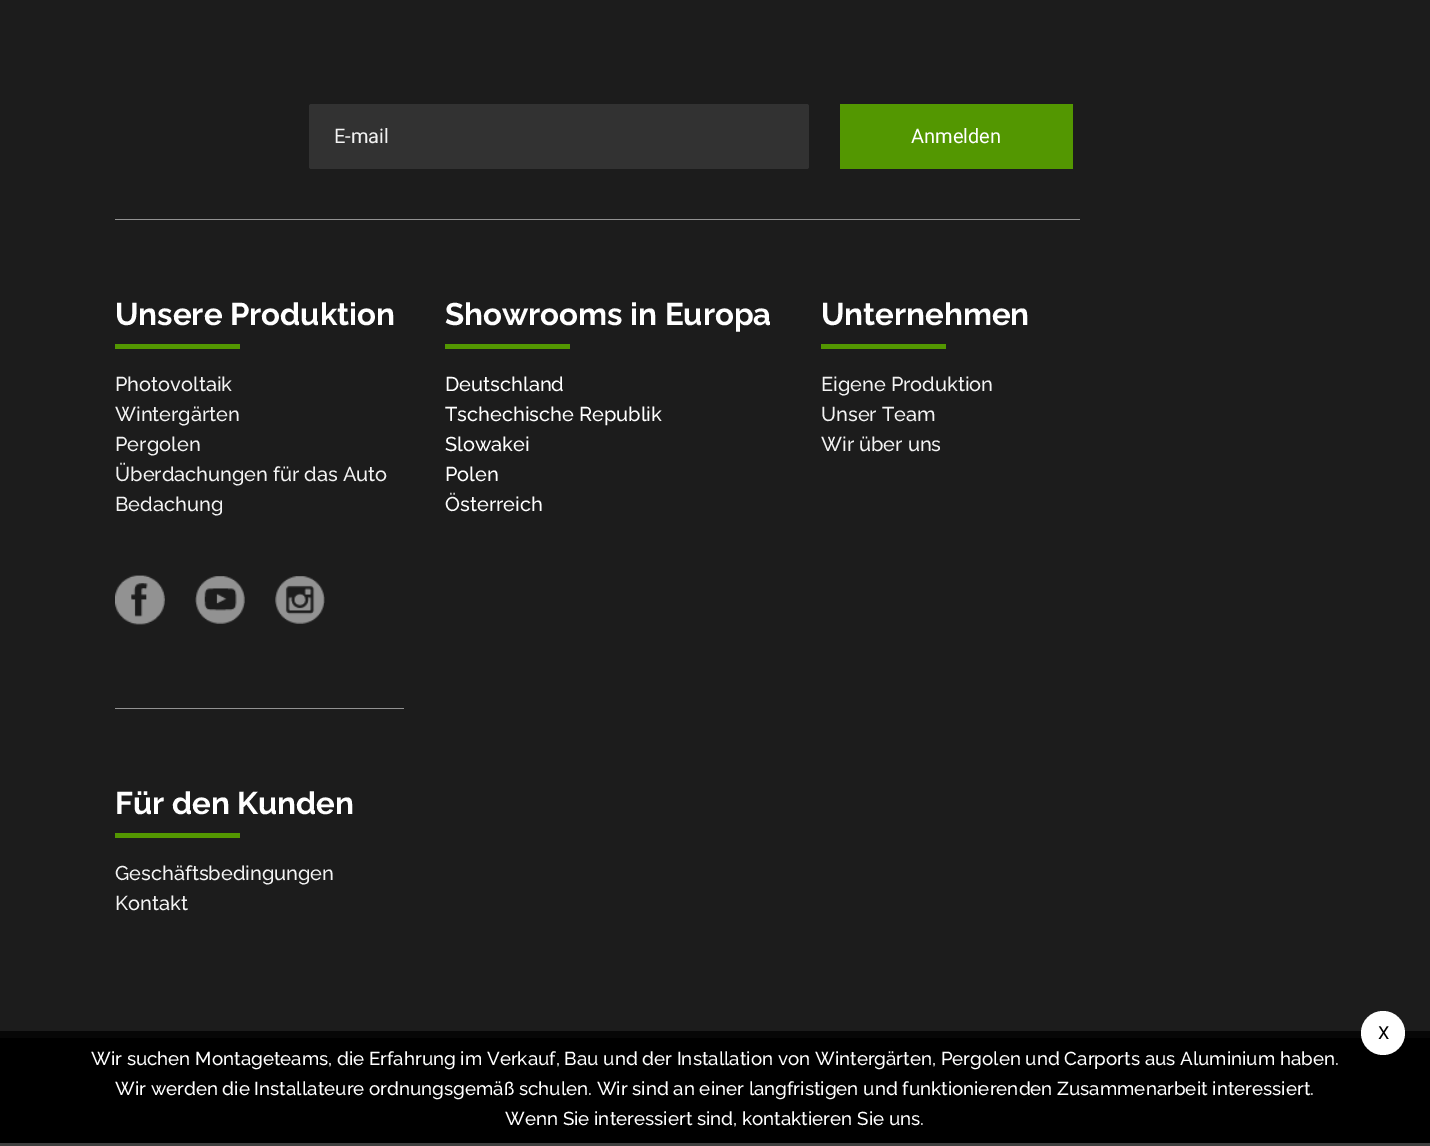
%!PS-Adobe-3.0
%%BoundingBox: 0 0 1430 1146
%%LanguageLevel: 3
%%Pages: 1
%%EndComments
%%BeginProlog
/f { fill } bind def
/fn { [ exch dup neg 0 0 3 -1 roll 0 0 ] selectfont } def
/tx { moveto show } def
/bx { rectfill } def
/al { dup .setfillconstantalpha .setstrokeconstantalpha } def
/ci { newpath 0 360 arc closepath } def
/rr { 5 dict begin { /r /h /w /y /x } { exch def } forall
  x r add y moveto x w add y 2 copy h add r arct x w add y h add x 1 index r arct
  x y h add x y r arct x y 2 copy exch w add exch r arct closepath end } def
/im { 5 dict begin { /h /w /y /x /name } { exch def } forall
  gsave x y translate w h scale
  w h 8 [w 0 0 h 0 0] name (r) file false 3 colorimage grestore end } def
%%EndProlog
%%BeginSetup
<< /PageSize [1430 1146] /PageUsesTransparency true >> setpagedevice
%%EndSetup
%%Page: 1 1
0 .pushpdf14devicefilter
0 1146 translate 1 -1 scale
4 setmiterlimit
0.98 setgray
0 0 1430 1146 bx
0.11 setgray
0 0 1430 1038 bx
0.196 setgray
309 104 500 65 2.5 rr f
/Roboto-Regular 20 fn
0.953 setgray
(E-mail) 334 143 tx
0.325 0.592 0.004 setrgbcolor
840 104 233 65 bx
1 setgray
(Anmelden) 911 143 tx
0.573 setgray
115 219 965 1 bx
/Raleway-Bold 31.25 fn
1 setgray
(Unsere Produktion) 115 325 tx
0.325 0.592 0.004 setrgbcolor
115 344 125 5 bx
/Raleway-Medium 20 fn
0.953 setgray
(Photovoltaik) 115 391 tx
(Wintergärten) 115 421 tx
(Pergolen) 115 451 tx
(Überdachungen für das Auto) 115 481 tx
(Bedachung) 115 511 tx
(image0.raw) 115 575 50 50 im
(image1.raw) 195 576 50 48 im
(image2.raw) 275 576 50 48 im
/Raleway-Bold 31.25 fn
1 setgray
(Showrooms in Europa) 445 325 tx
0.325 0.592 0.004 setrgbcolor
445 344 125 5 bx
/Raleway-Medium 20 fn
1 setgray
(Deutschland) 445 391 tx
(Tschechische Republik) 445 421 tx
(Slowakei) 445 451 tx
(Polen) 445 481 tx
(Österreich) 445 511 tx
/Raleway-Bold 31.25 fn
(Unternehmen) 821 325 tx
0.325 0.592 0.004 setrgbcolor
821 344 125 5 bx
/Raleway-Medium 20 fn
0.953 setgray
(Eigene Produktion) 821 391 tx
(Unser Team) 821 421 tx
(Wir über uns) 821 451 tx
0.573 setgray
115 708 289 1 bx
/Raleway-Bold 31.25 fn
1 setgray
(Für den Kunden) 115 814 tx
0.325 0.592 0.004 setrgbcolor
115 833 125 5 bx
/Raleway-Medium 20 fn
0.953 setgray
(Geschäftsbedingungen) 115 880 tx
(Kontakt) 115 910 tx
0 setgray
0 1038 1430 105 bx
0.75 al
0 1031 1430 115 bx
1 al
1 setgray
1383 1033 22 ci f
/Roboto-Regular 18 fn
0 setgray
(X) 1378 1039 tx
/Raleway-Medium 18.75 fn
1 setgray
(Wir suchen Montageteams, die Erfahrung im Verkauf, Bau und der Installation von Wintergärten, Pergolen und Carports aus Aluminium haben.) 91 1065 tx
(Wir werden die Installateure ordnungsgemäß schulen. Wir sind an einer langfristigen und funktionierenden Zusammenarbeit interessiert.) 115 1095 tx
(Wenn Sie interessiert sind, kontaktieren Sie uns.) 505 1125 tx
.poppdf14devicefilter showpage
%%EOF
